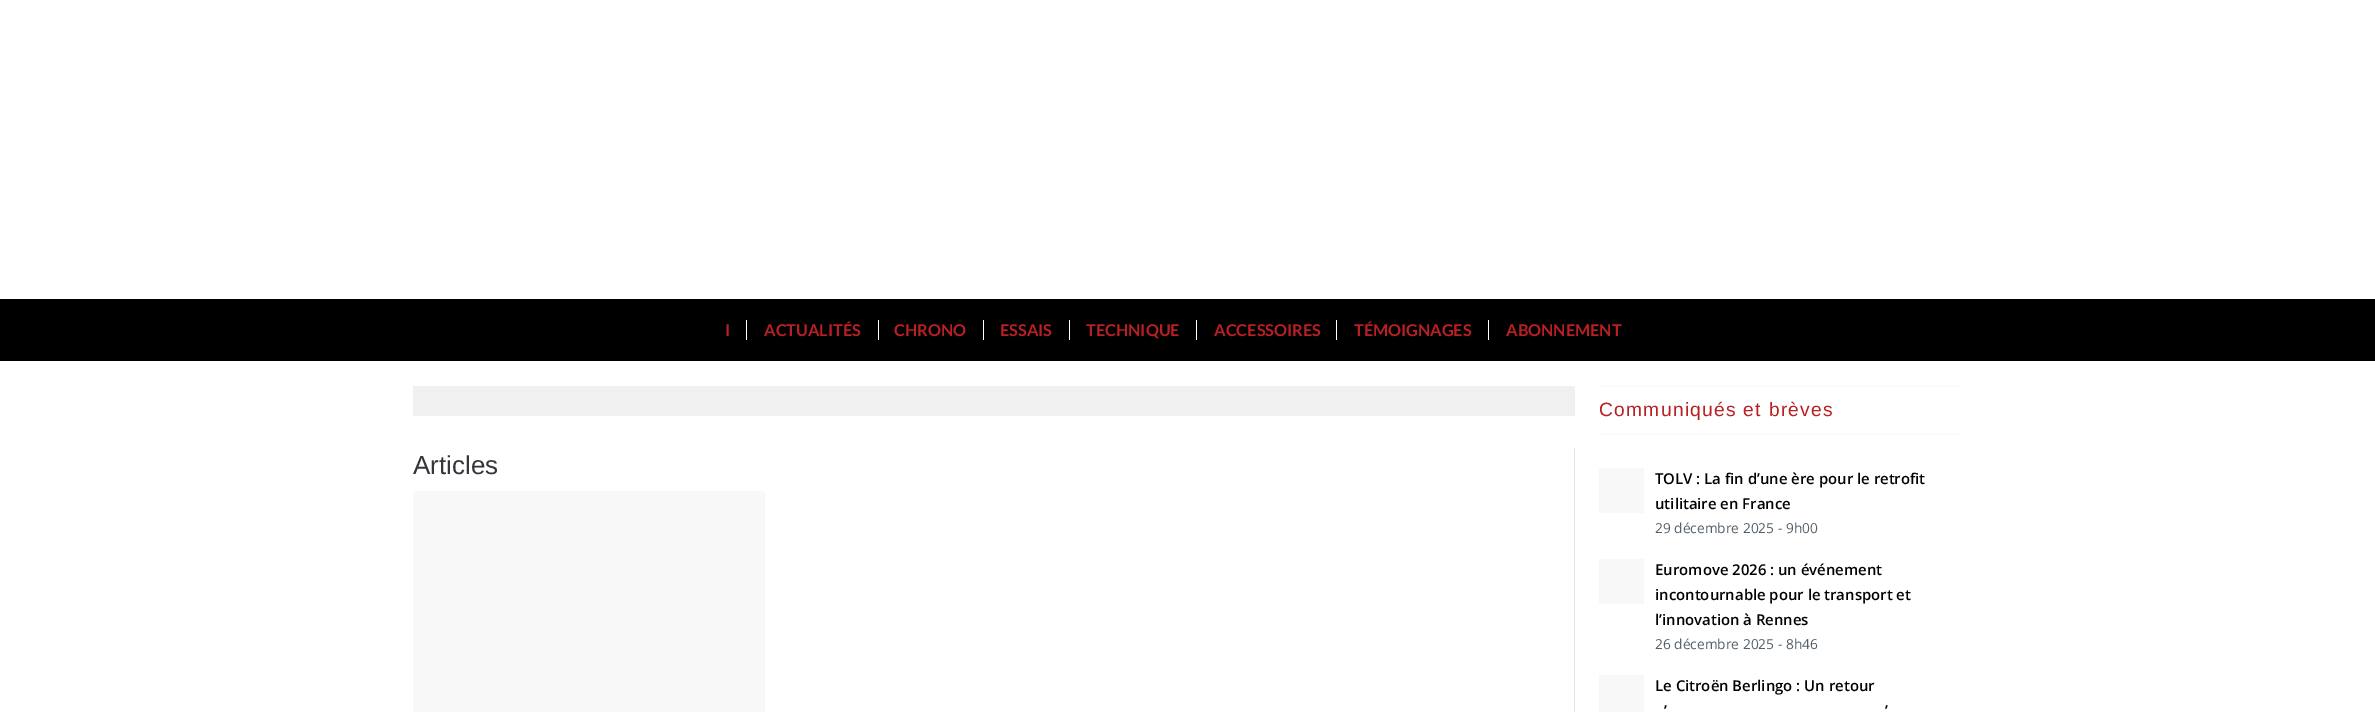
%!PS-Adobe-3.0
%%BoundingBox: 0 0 2375 712
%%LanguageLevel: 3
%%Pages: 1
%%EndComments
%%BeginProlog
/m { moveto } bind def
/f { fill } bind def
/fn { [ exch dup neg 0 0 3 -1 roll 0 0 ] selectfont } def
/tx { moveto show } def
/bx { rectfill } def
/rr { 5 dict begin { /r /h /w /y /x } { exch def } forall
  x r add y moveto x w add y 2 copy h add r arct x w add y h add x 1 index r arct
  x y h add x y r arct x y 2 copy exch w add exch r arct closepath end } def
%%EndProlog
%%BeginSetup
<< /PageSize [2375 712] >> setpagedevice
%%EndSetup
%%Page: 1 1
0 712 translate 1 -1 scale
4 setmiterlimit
1 setgray
0 0 2375 712 bx
0 setgray
0 299 2375 62 bx
/Lato-Bold 16.25 fn
0.729 0.125 0.137 setrgbcolor
(I) 725 336 tx
(ACTUALITÉS) 764 336 tx
1 setgray
746 320 1 20 bx
0.729 0.125 0.137 setrgbcolor
(CHRONO) 894 336 tx
1 setgray
878 320 1 20 bx
0.729 0.125 0.137 setrgbcolor
(ESSAIS) 1000 336 tx
1 setgray
983 320 1 20 bx
0.729 0.125 0.137 setrgbcolor
(TECHNIQUE) 1086 336 tx
1 setgray
1069 320 1 20 bx
0.729 0.125 0.137 setrgbcolor
(ACCESSOIRES) 1214 336 tx
1 setgray
1196 320 1 20 bx
0.729 0.125 0.137 setrgbcolor
(TÉMOIGNAGES) 1354 336 tx
1 setgray
1336 320 1 20 bx
0.729 0.125 0.137 setrgbcolor
(ABONNEMENT) 1506 336 tx
1 setgray
1488 320 1 20 bx
0.941 setgray
413 386 1162 30 bx
0.898 setgray
1574 448 1 264 bx
/LiberationSans-Regular 26 fn
0.2 0.212 0.231 setrgbcolor
(Articles) 413 474 tx
0.973 setgray
413 491 352 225 4 rr f
1599 386 364 1 bx
1599 434 364 1 bx
/LiberationSans-Regular 19.25 fn
0.729 0.125 0.137 setrgbcolor
1599 416 m 1.25 0 (Communiqués et brèves) ashow
0.973 setgray
1599 468 45 45 bx
/OpenSans-SemiBold 14.9 fn
0 setgray
(TOLV : La fin d’une ère pour le retrofit) 1655 484 tx
(utilitaire en France) 1655 509 tx
/OpenSans-Regular 13.75 fn
0.325 0.373 0.412 setrgbcolor
(29 décembre 2025 - 9h00) 1655 533 tx
0.973 setgray
1599 559 45 45 bx
/OpenSans-SemiBold 14.9 fn
0 setgray
(Euromove 2026 : un événement) 1655 575 tx
(incontournable pour le transport et) 1655 600 tx
(l’innovation à Rennes) 1655 625 tx
/OpenSans-Regular 13.75 fn
0.325 0.373 0.412 setrgbcolor
(26 décembre 2025 - 8h46) 1655 649 tx
0.973 setgray
1599 675 45 37 bx
/OpenSans-SemiBold 14.9 fn
0 setgray
(Le Citroën Berlingo : Un retour) 1655 691 tx
(’) 1664 716 tx
(’) 1885 716 tx
showpage
%%EOF
